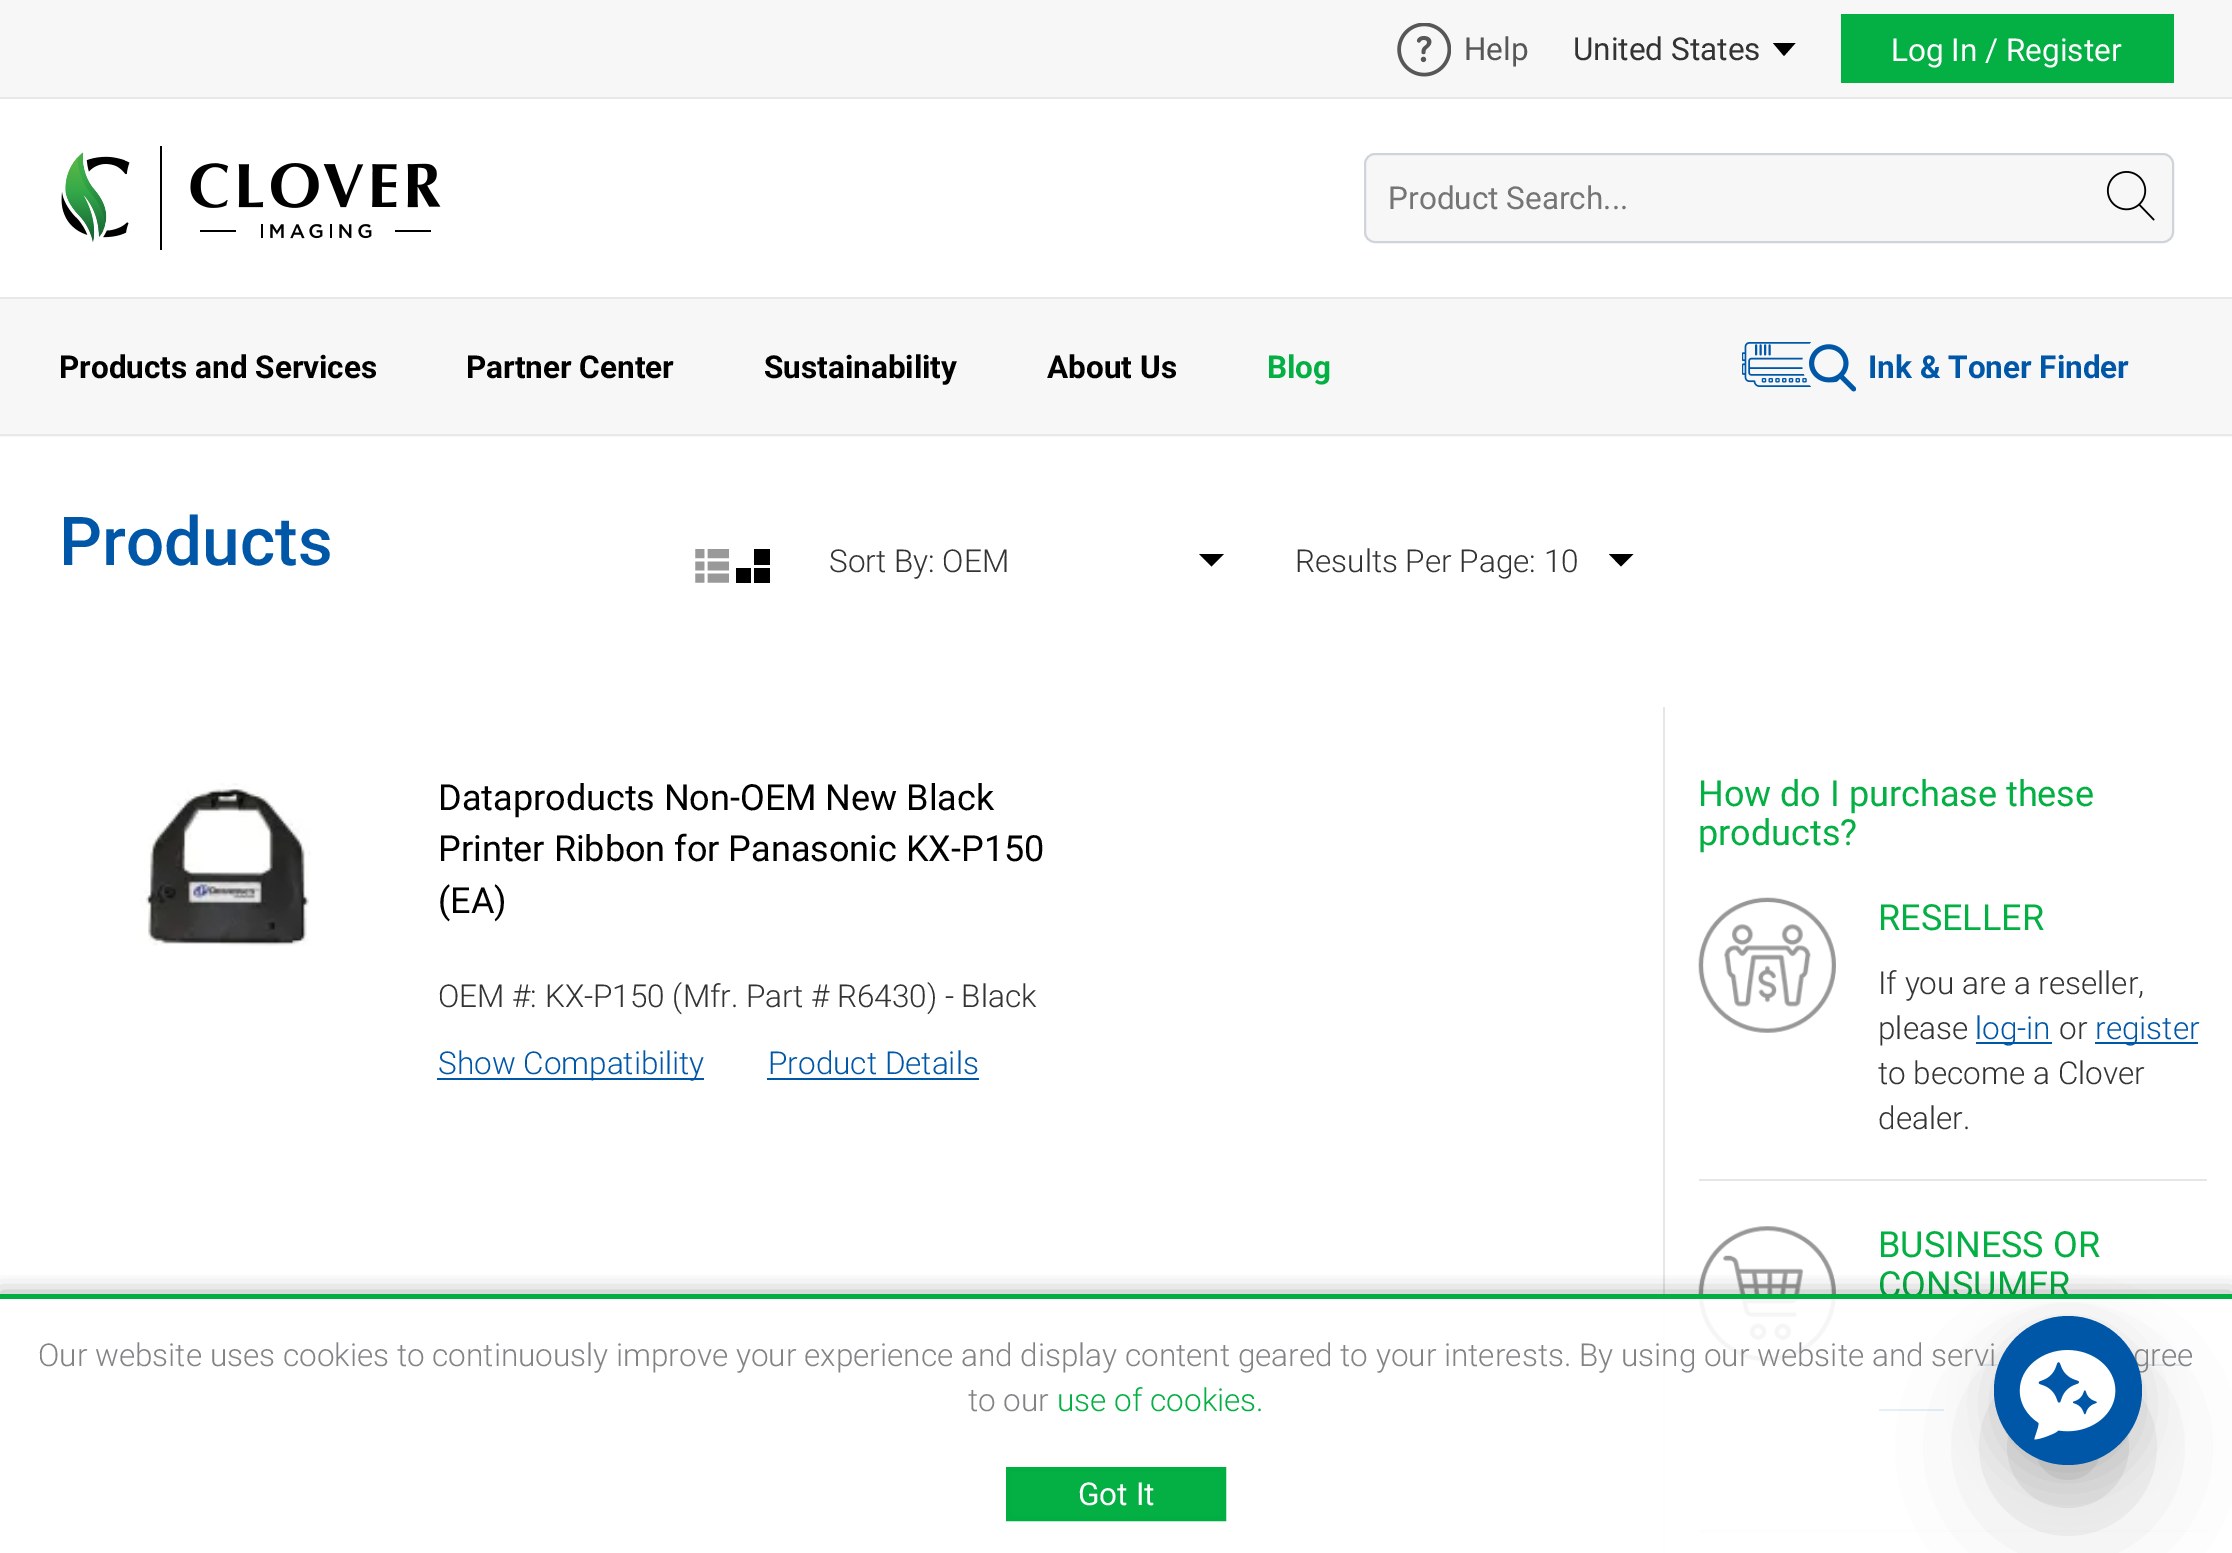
%!PS-Adobe-3.0
%%BoundingBox: 0 0 2232 1553
%%LanguageLevel: 3
%%Pages: 1
%%EndComments
%%BeginProlog
/m { moveto } bind def
/l { lineto } bind def
/h { closepath } bind def
/f { fill } bind def
/S { stroke } bind def
/q { gsave } bind def
/Q { grestore } bind def
/w { setlinewidth } bind def
/fn { [ exch dup neg 0 0 3 -1 roll 0 0 ] selectfont } def
/tx { moveto show } def
/bx { rectfill } def
/al { dup .setfillconstantalpha .setstrokeconstantalpha } def
/rr { 5 dict begin { /r /h /w /y /x } { exch def } forall
  x r add y moveto x w add y 2 copy h add r arct x w add y h add x 1 index r arct
  x y h add x y r arct x y 2 copy exch w add exch r arct closepath end } def
/sh { 12 dict begin { /a /b /q /h /w /y /x } { exch def } forall gsave /was 0 def
  9 -2 -9 { dup b mul 4 div /e exch def 1 sub .425 mul 2.718 exch exp 1 add a .99 .min exch div /now exch def
    1 1 now sub 1 was sub div sub al /was now def
    w h .min e 2 mul add 0 gt { x e sub y e sub w e 2 mul add h e 2 mul add
      q e add b .6 mul add w h .min 2 div e add .min 0 .max rr fill } if } for grestore end } def
/im { 5 dict begin { /h /w /y /x /name } { exch def } forall
  gsave x y translate w h scale
  w h 8 [w 0 0 h 0 0] name (r) file false 3 colorimage grestore end } def
%%EndProlog
%%BeginSetup
<< /PageSize [2232 1553] /PageUsesTransparency true >> setpagedevice
%%EndSetup
%%Page: 1 1
0 .pushpdf14devicefilter
0 1553 translate 1 -1 scale
4 setmiterlimit
1 setgray
0 0 2232 1553 bx
0.969 setgray
0 0 2232 97 bx
0.91 setgray
0 97 2232 2 bx
(image0.raw) 1397 23 54 54 im
/Roboto-Regular 31.5 fn
0.341 setgray
(Help) 1464 60 tx
0.2 setgray
(United States) 1573 60 tx
0 setgray
1773 43 m 1795.5 43 l 1784 56 l h f
0.016 0.686 0.267 setrgbcolor
1841 14 333 69 bx
1 setgray
(Log In / Register) 1891 61 tx
0.91 setgray
0 297 2232 2 bx
(image1.raw) 61 146 380 104 im
0.969 setgray
1365 154 808 88 10 rr q f Q
0.808 0.831 0.855 setrgbcolor
2 w
S
0.459 setgray
(Product Search...) 1388 209 tx
(image2.raw) 2106 171 49 50 im
0.969 setgray
0 299 2232 138 bx
0.91 setgray
0 434 2232 2 bx
/Roboto-Bold 31.5 fn
0 setgray
(Products and Services) 59 378 tx
(Partner Center) 466 378 tx
(Sustainability) 764 378 tx
(About Us) 1047 378 tx
0.016 0.686 0.267 setrgbcolor
(Blog) 1267 378 tx
(image3.raw) 1742 342 114 50 im
0 0.341 0.659 setrgbcolor
(Ink & Toner Finder) 1868 378 tx
/Roboto-Medium 67.5 fn
(Products) 59 565 tx
(image4.raw) 695 549 34 34 im
0 setgray
754 549 16 16 bx
736 568 15 15 bx
754 568 16 15 bx
/Roboto-Light 31.5 fn
0.2 setgray
(Sort By: OEM) 829 572 tx
0 setgray
1199 554 m 1224 554 l 1211.5 566.5 l h f
0.2 setgray
(Results Per Page: 10) 1295 572 tx
0 setgray
1609 554 m 1633.5 554 l 1621 566.5 l h f
(image5.raw) 140 783 171 163 im
/Roboto-Regular 36 fn
(Dataproducts Non-OEM New Black) 438 810 tx
(Printer Ribbon for Panasonic KX-P150) 438 861 tx
(\(EA\)) 438 913 tx
/Roboto-Light 31.5 fn
0.2 setgray
(OEM #: KX-P150 \(Mfr. Part # R6430\) - Black) 438 1007 tx
0 0.341 0.659 setrgbcolor
437 1078 267 2 bx
(Show Compatibility) 438 1074 tx
(Product Details) 768 1074 tx
767 1078 212 2 bx
0.902 setgray
1663 707 2 846 bx
/Roboto-Regular 36 fn
0.016 0.686 0.267 setrgbcolor
(How do I purchase these) 1698 806 tx
(products?) 1698 845 tx
(image6.raw) 1698 897 138 136 im
0.902 setgray
1699 1179 508 2 bx
0.016 0.686 0.267 setrgbcolor
(RESELLER) 1878 930 tx
/Roboto-Light 31.5 fn
0.2 setgray
(If you are a reseller,) 1878 994 tx
(please) 1878 1039 tx
0 0.341 0.659 setrgbcolor
1976 1042 76 2 bx
(log-in) 1975 1039 tx
0.2 setgray
(or) 2059 1039 tx
0 0.341 0.659 setrgbcolor
2095 1042 103 2 bx
(register) 2095 1039 tx
0.2 setgray
(to become a Clover) 1878 1084 tx
(dealer.) 1878 1129 tx
(image7.raw) 1698 1226 138 136 im
0.902 setgray
1699 1530 508 2 bx
/Roboto-Regular 36 fn
0.016 0.686 0.267 setrgbcolor
(BUSINESS OR) 1878 1257 tx
(CONSUMER) 1878 1297 tx
0 0.341 0.659 setrgbcolor
1978 1364 211 2 bx
1879 1409 65 2 bx
q
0 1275 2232 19 rectclip
0 setgray
0 1292 2232 261 0 11 0.3 sh
Q
0.9 al
1 setgray
1663 1299 544 254 bx
1 al
0 0.682 0.259 setrgbcolor
0 1294 2232 5 bx
0 setgray
2021 1400 94 94 47 56 0.25 sh
1994 1330 148 148 74 21.5 0.12 sh
/Roboto-Light 31.5 fn
0.51 0.514 0.522 setrgbcolor
(Our website uses cookies to continuously improve your experience and display content geared to your interests. By using our website and servi) 38 1366 tx
(gree) 2133 1366 tx
0 0.341 0.659 setrgbcolor
1994 1316 148 149 74 rr f
(image8.raw) 2019 1350 97 90 im
0.51 0.514 0.522 setrgbcolor
(to our) 968 1411 tx
0.016 0.686 0.267 setrgbcolor
(use of cookies.) 1057 1411 tx
1008.5 1469.5 m 1223.5 1469.5 l 1223.5 1518.5 l 1008.5 1518.5 l h q f Q
0 0.682 0.259 setrgbcolor
5 w
S
/Roboto-Regular 31.5 fn
1 setgray
(Got It) 1078 1505 tx
.poppdf14devicefilter showpage
%%EOF
